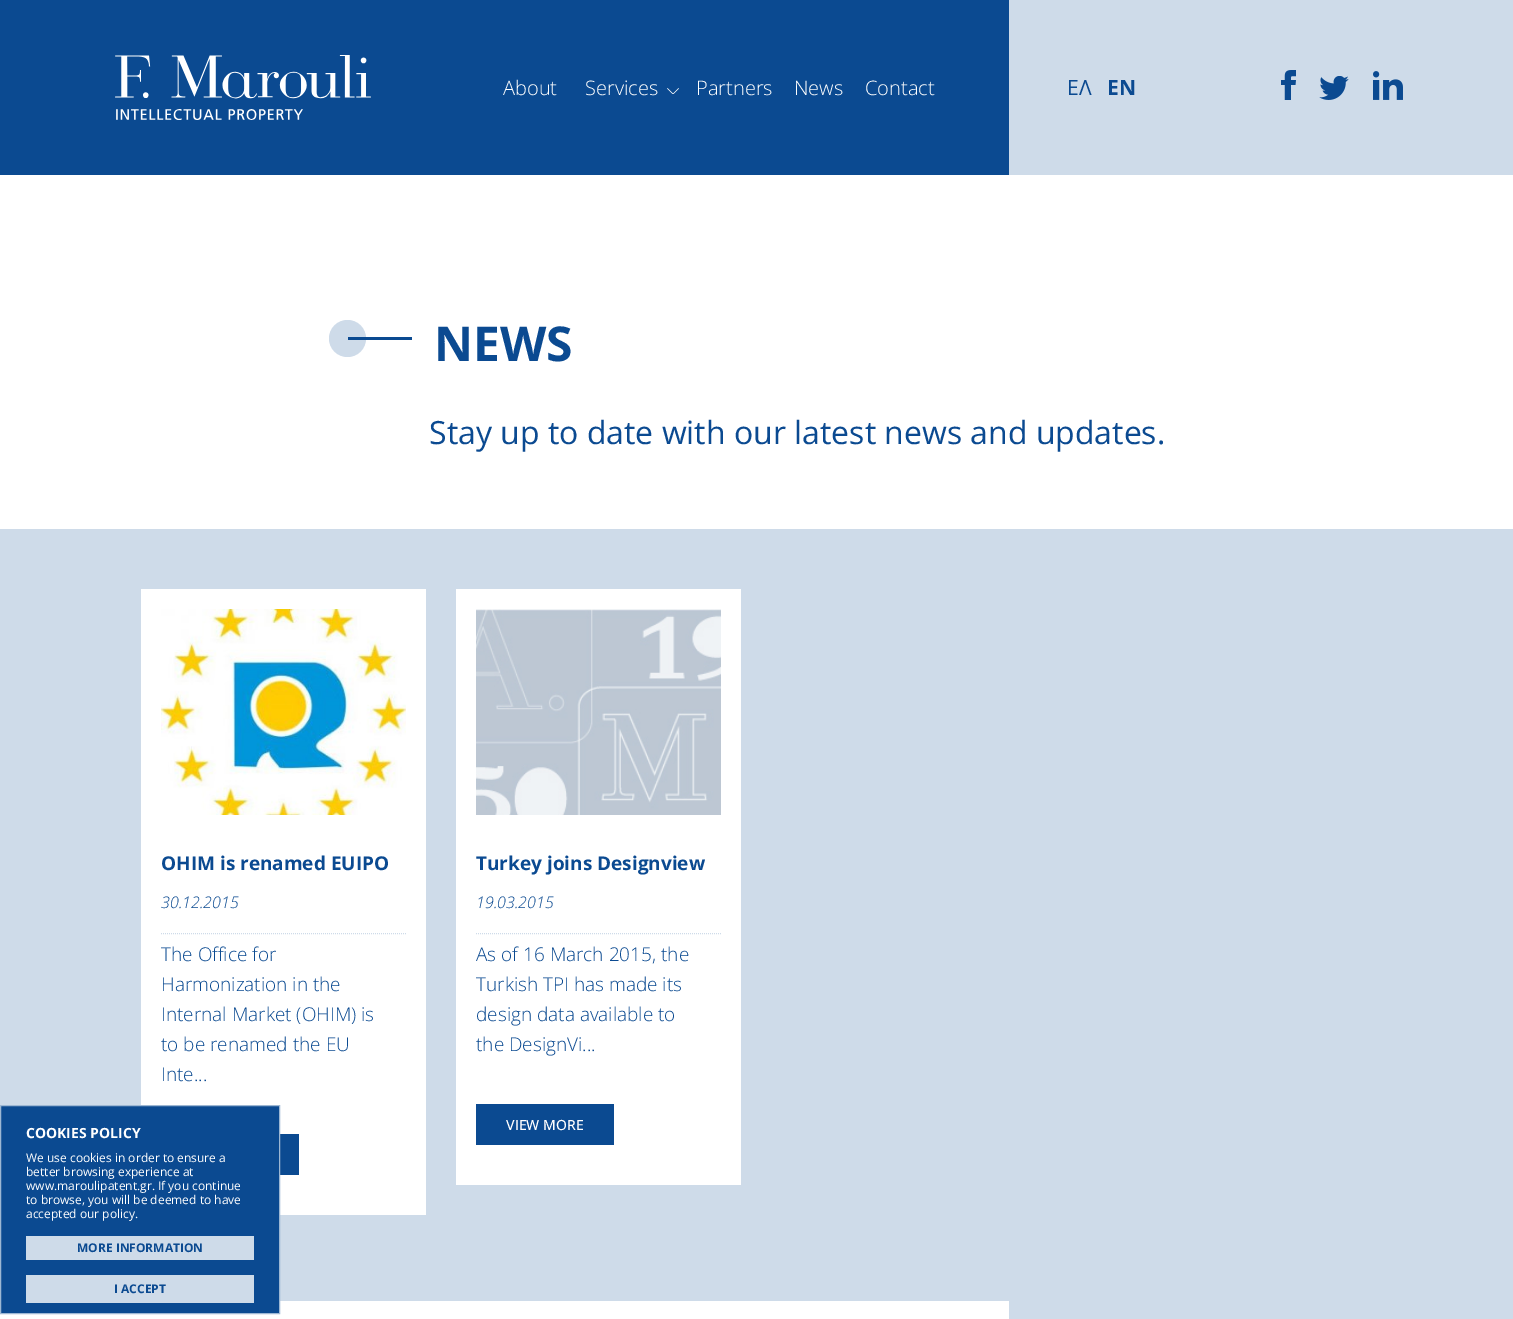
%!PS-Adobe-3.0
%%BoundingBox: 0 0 1513 1319
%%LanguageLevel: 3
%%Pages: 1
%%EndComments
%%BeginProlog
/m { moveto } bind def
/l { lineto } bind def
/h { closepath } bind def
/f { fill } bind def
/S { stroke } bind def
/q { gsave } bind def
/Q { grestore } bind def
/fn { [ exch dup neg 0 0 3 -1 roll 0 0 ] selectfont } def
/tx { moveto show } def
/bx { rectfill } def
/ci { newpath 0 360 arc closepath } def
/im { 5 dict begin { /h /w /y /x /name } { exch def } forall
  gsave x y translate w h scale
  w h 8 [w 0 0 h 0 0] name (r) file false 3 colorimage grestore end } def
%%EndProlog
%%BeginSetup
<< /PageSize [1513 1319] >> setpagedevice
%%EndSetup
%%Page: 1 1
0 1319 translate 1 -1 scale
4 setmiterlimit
1 setgray
0 0 1513 1319 bx
0.043 0.29 0.569 setrgbcolor
0 0 1009 175 bx
(image0.raw) 115 55 256 65 im
/OpenSans-Light 20 fn
1 setgray
(About) 503 95 tx
(Services) 585 95 tx
(image1.raw) 667 88 12 6 im
(Partners) 696 95 tx
(News) 794 95 tx
(Contact) 865 95 tx
0.808 0.859 0.914 setrgbcolor
1009 0 504 175 bx
/OpenSans-Regular 21 fn
0.043 0.29 0.569 setrgbcolor
(ΕΛ) 1067 95 tx
/OpenSans-Bold 21 fn
(EN) 1107 95 tx
(image2.raw) 1281 70 15 30 im
(image3.raw) 1319 76 30 24 im
(image4.raw) 1373 71 30 29 im
0.808 0.859 0.914 setrgbcolor
347.5 338.5 18.5 ci f
0.043 0.29 0.569 setrgbcolor
348 337 64 3 bx
/OpenSans-Bold 48 fn
(NEWS) 434 361 tx
/OpenSans-Regular 32 fn
(Stay up to date with our latest news and updates.) 429 444 tx
0.808 0.859 0.914 setrgbcolor
0 529 1513 790 bx
1 setgray
141 589 285 626 bx
(image5.raw) 161 609 245 206 im
/OpenSans-Bold 19 fn
0.043 0.29 0.569 setrgbcolor
(OHIM is renamed EUIPO) 161 870 tx
/OpenSans-LightItalic 16 fn
(30.12.2015) 161 908 tx
0.808 0.859 0.914 setrgbcolor
[1 1] 0 setdash
161 933.5 m 406 933.5 l S
/OpenSans-Light 19 fn
0.043 0.29 0.569 setrgbcolor
(The Office for) 161 961 tx
(Harmonization in the) 161 991 tx
(Internal Market \(OHIM\) is) 161 1021 tx
(to be renamed the EU) 161 1051 tx
(Inte...) 161 1081 tx
280 1134 19 41 bx
1 setgray
456 589 285 596 bx
(image6.raw) 476 609 245 206 im
/OpenSans-Bold 19 fn
0.043 0.29 0.569 setrgbcolor
(Turkey joins Designview) 476 870 tx
/OpenSans-LightItalic 16 fn
(19.03.2015) 476 908 tx
0.808 0.859 0.914 setrgbcolor
476 933.5 m 721 933.5 l S
/OpenSans-Light 19 fn
0.043 0.29 0.569 setrgbcolor
(As of 16 March 2015, the) 476 961 tx
(Turkish TPI has made its) 476 991 tx
(design data available to) 476 1021 tx
(the DesignVi...) 476 1051 tx
476 1104 138 41 bx
/OpenSans-Medium 14 fn
1 setgray
(VIEW MORE) 506 1130 tx
0 1301 1009 18 bx
0.043 0.29 0.569 setrgbcolor
0.5 1105.5 m 279.5 1105.5 l 279.5 1313.5 l 0.5 1313.5 l h q f Q
0.616 0.718 0.827 setrgbcolor
[] 0 setdash
S
/OpenSans-Bold 14 fn
1 setgray
(COOKIES POLICY) 26 1138 tx
/OpenSans-Regular 12 fn
(We use cookies in order to ensure a) 26 1162 tx
(better browsing experience at) 26 1176 tx
(www.maroulipatent.gr. If you continue) 26 1190 tx
(to browse, you will be deemed to have) 26 1204 tx
(accepted our policy.) 26 1218 tx
0.808 0.859 0.914 setrgbcolor
26 1236 228 24 bx
/OpenSans-Bold 12 fn
0.043 0.29 0.569 setrgbcolor
(MORE INFORMATION) 77 1252 tx
0.808 0.859 0.914 setrgbcolor
26 1275 228 28 bx
0.043 0.29 0.569 setrgbcolor
(I ACCEPT) 114 1293 tx
showpage
%%EOF
